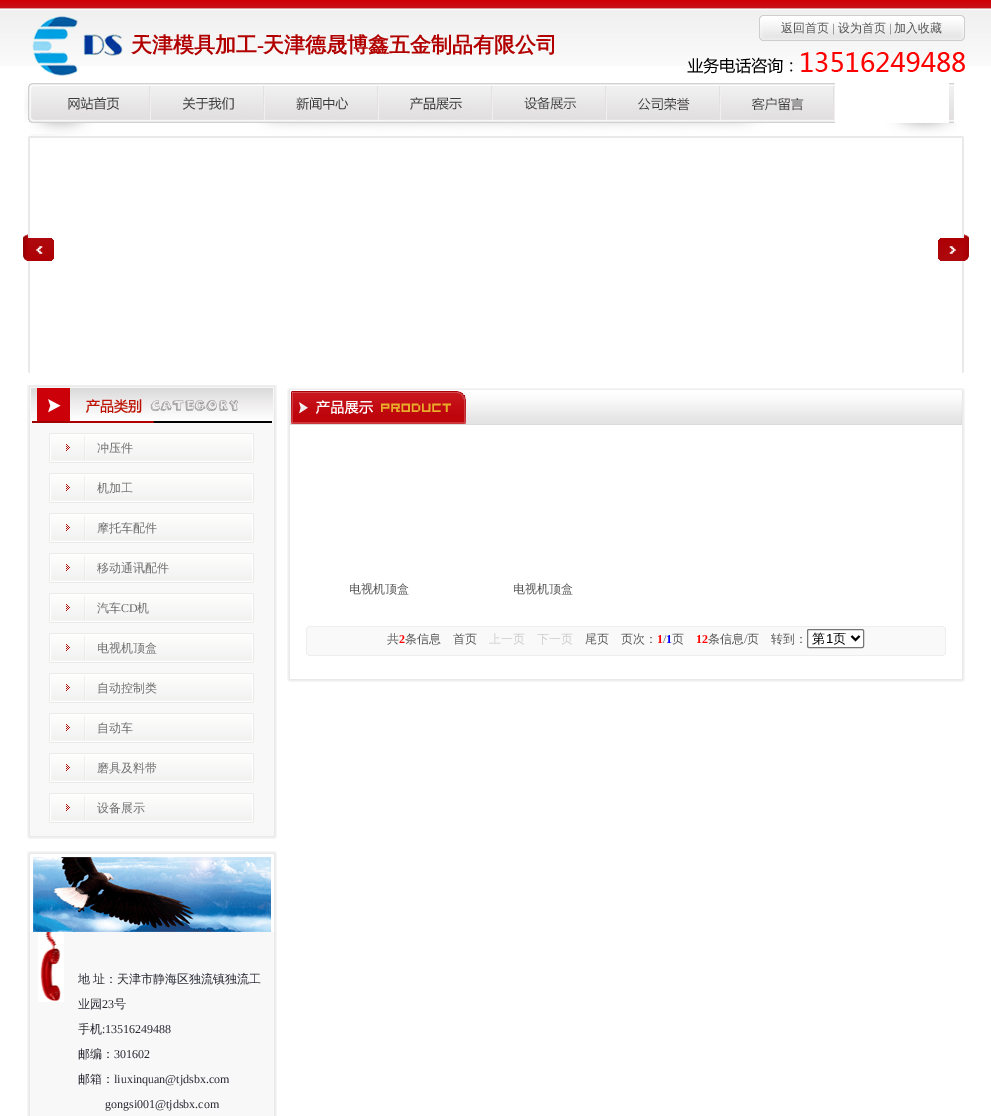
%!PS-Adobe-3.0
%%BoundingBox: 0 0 991 1116
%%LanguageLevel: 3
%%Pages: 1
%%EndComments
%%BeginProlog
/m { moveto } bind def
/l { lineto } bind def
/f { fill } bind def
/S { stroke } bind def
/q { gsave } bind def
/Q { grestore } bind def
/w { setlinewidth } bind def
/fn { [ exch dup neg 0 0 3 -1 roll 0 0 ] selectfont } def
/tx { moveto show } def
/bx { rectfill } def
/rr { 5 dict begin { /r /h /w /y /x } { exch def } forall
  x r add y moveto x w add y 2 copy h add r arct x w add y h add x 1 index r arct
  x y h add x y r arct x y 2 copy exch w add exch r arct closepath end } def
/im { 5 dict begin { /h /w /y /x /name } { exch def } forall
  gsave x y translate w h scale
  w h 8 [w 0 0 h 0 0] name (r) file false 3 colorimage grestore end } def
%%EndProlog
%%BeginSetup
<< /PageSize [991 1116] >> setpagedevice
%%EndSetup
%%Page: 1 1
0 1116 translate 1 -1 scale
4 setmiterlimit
1 setgray
0 0 991 1116 bx
(image0.raw) 0 0 991 66 im
(image1.raw) 687 15 278 59 im
(image2.raw) 32 16 91 60 im
/WenQuanYiZenHei-Medium 12 fn
0.337 setgray
(返回首页) 781 32 tx
/LiberationSerif-Regular 12 fn
(|) 832 32 tx
/WenQuanYiZenHei-Medium 12 fn
(设为首页) 838 32 tx
/LiberationSerif-Regular 12 fn
(|) 889 32 tx
/WenQuanYiZenHei-Medium 12 fn
(加入收藏) 894 32 tx
/WenQuanYiZenHei-Bold 21 fn
0.698 0 0 setrgbcolor
(天津模具加工) 131 52 tx
/LiberationSerif-Bold 21 fn
(-) 257 52 tx
/WenQuanYiZenHei-Bold 21 fn
(天津德晟博鑫五金制品有限公司) 263 52 tx
(image3.raw) 30 123 927 13 im
(image4.raw) 24 83 13 40 im
(image5.raw) 37 83 917 40 im
(image6.raw) 68 86 83 34 im
(image7.raw) 182 86 83 34 im
(image8.raw) 296 86 83 34 im
(image9.raw) 410 86 83 34 im
(image10.raw) 524 86 83 34 im
(image11.raw) 638 86 83 34 im
(image12.raw) 751 86 84 34 im
1 setgray
835 83 114 40 bx
(image13.raw) 23 136 7 237 im
(image14.raw) 30 136 932 235 im
(image15.raw) 30 238 24 23 im
(image16.raw) 938 238 24 23 im
(image17.raw) 962 136 7 237 im
(image18.raw) 27 385 250 38 im
(image19.raw) 27 423 250 400 im
(image20.raw) 49 433 205 30 im
/WenQuanYiZenHei-Medium 12 fn
0.443 setgray
(冲压件) 97 452 tx
(image20.raw) 49 473 205 30 im
(机加工) 97 492 tx
(image20.raw) 49 513 205 30 im
(摩托车配件) 97 532 tx
(image20.raw) 49 553 205 30 im
(移动通讯配件) 97 572 tx
(image20.raw) 49 593 205 30 im
(汽车) 97 612 tx
/LiberationSerif-Regular 12 fn
(CD) 121 612 tx
/WenQuanYiZenHei-Medium 12 fn
(机) 137 612 tx
(image20.raw) 49 633 205 30 im
(电视机顶盒) 97 652 tx
(image20.raw) 49 673 205 30 im
(自动控制类) 97 692 tx
(image20.raw) 49 713 205 30 im
(自动车) 97 732 tx
(image20.raw) 49 753 205 30 im
(磨具及料带) 97 772 tx
(image20.raw) 49 793 205 30 im
(设备展示) 97 812 tx
(image21.raw) 27 823 250 16 im
(image22.raw) 27 851 250 81 im
(image23.raw) 27 932 250 184 im
(image24.raw) 38 932 26 70 im
0.161 0.161 0.204 setrgbcolor
78 983 m -1 0 32 (地 址) widthshow
(：天津市静海区独流镇独流工) 105 983 tx
(业园) 78 1008 tx
/LiberationSerif-Regular 12 fn
(23) 102 1008 tx
/WenQuanYiZenHei-Medium 12 fn
(号) 114 1008 tx
(手机) 78 1033 tx
/LiberationSerif-Regular 12 fn
(:13516249488) 102 1033 tx
/WenQuanYiZenHei-Medium 12 fn
(邮编：) 78 1058 tx
/LiberationSerif-Regular 12 fn
(301602) 114 1058 tx
/WenQuanYiZenHei-Medium 12 fn
(邮箱：) 78 1083 tx
/LiberationSerif-Regular 12 fn
(liuxinquan@tjdsbx.com) 114 1083 tx
(gongsi001@tjdsbx.com) 105 1108 tx
(image25.raw) 287 388 678 37 im
(image26.raw) 287 425 678 241 im
/WenQuanYiZenHei-Medium 12 fn
0.337 setgray
(电视机顶盒) 349 593 tx
(电视机顶盒) 513 593 tx
(image27.raw) 306 626 640 30 im
(共) 387 643 tx
/LiberationSerif-Bold 12 fn
1 0 0 setrgbcolor
(2) 399 643 tx
/WenQuanYiZenHei-Medium 12 fn
0.337 setgray
(条信息) 405 643 tx
(首页) 453 643 tx
0.8 setgray
(上一页) 489 643 tx
(下一页) 537 643 tx
0.337 setgray
(尾页) 585 643 tx
(页次：) 621 643 tx
/LiberationSerif-Bold 12 fn
1 0 0 setrgbcolor
(1) 657 643 tx
/LiberationSerif-Regular 12 fn
0.337 setgray
(/) 663 643 tx
/LiberationSerif-Bold 12 fn
0 0 1 setrgbcolor
(1) 666 643 tx
/WenQuanYiZenHei-Medium 12 fn
0.337 setgray
(页) 672 643 tx
/LiberationSerif-Bold 12 fn
1 0 0 setrgbcolor
(12) 696 643 tx
/WenQuanYiZenHei-Medium 12 fn
0.337 setgray
(条信息) 708 643 tx
/LiberationSerif-Regular 12 fn
(/) 744 643 tx
/WenQuanYiZenHei-Medium 12 fn
(页　转到：) 747 643 tx
1 setgray
807.5 629.5 56 18 1.5 rr q f Q
0.463 setgray
S
0 setgray
2 w
851.5 636 m 855.5 640 l 859.5 636 l S
/WenQuanYiZenHei-Medium 13 fn
(第) 812 643 tx
/LiberationSans-Regular 13 fn
(1) 826 643 tx
/WenQuanYiZenHei-Medium 13 fn
(页) 833 643 tx
(image28.raw) 287 666 678 16 im
showpage
%%EOF
